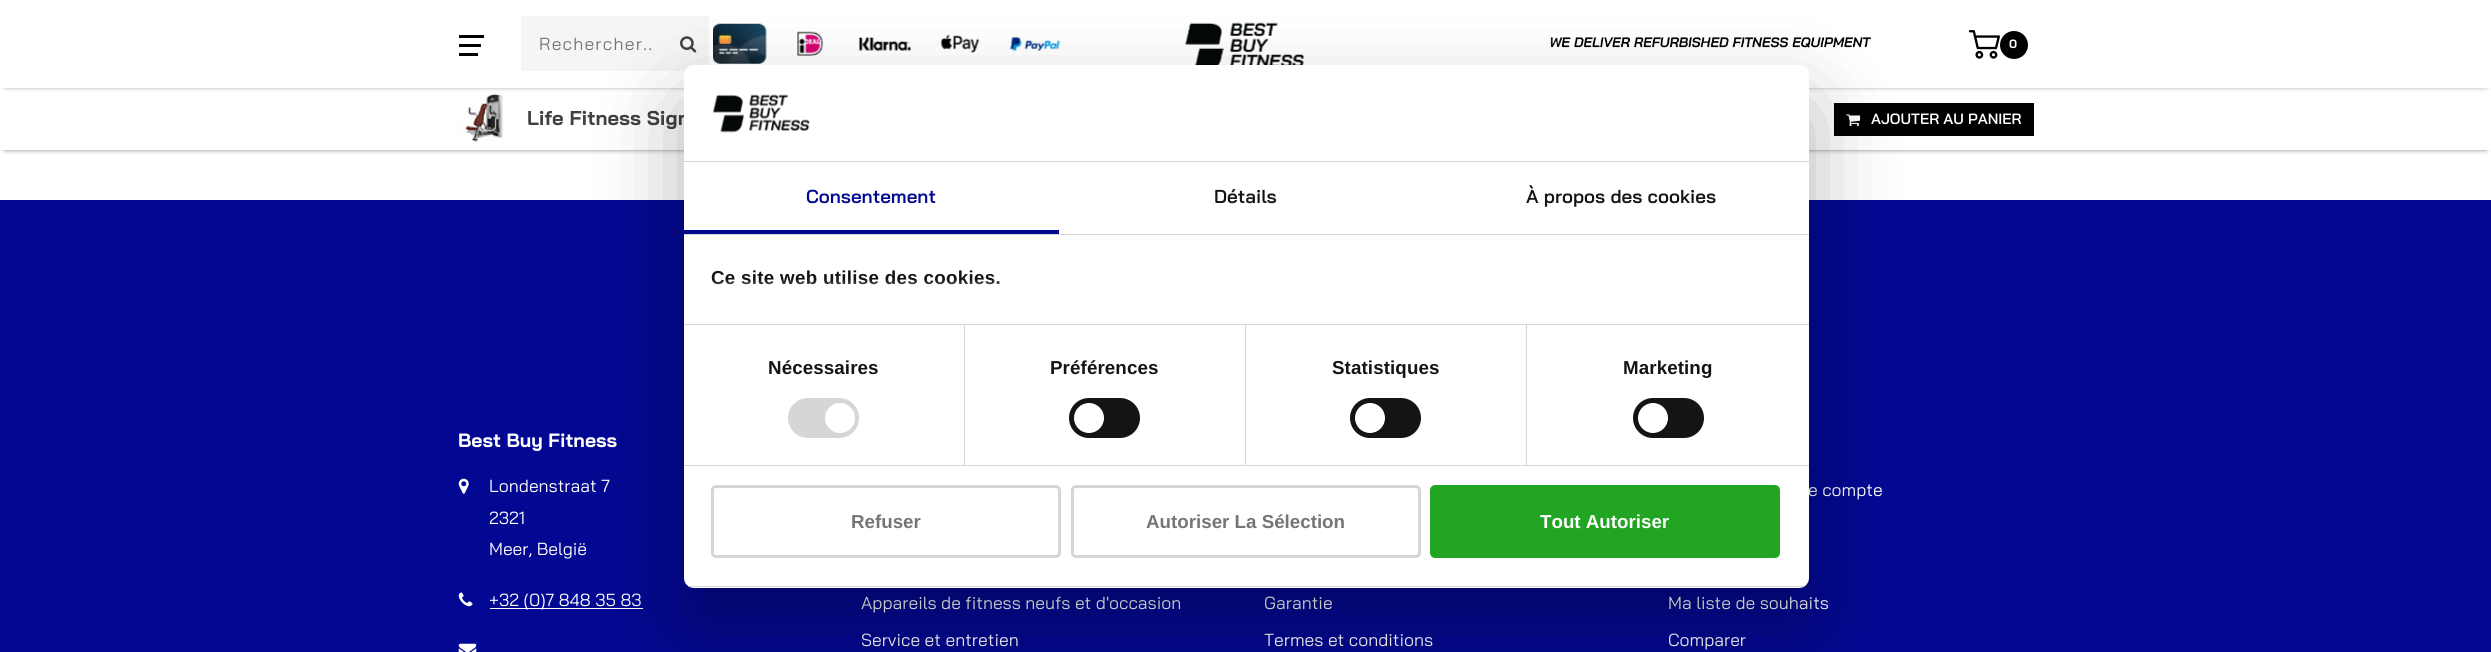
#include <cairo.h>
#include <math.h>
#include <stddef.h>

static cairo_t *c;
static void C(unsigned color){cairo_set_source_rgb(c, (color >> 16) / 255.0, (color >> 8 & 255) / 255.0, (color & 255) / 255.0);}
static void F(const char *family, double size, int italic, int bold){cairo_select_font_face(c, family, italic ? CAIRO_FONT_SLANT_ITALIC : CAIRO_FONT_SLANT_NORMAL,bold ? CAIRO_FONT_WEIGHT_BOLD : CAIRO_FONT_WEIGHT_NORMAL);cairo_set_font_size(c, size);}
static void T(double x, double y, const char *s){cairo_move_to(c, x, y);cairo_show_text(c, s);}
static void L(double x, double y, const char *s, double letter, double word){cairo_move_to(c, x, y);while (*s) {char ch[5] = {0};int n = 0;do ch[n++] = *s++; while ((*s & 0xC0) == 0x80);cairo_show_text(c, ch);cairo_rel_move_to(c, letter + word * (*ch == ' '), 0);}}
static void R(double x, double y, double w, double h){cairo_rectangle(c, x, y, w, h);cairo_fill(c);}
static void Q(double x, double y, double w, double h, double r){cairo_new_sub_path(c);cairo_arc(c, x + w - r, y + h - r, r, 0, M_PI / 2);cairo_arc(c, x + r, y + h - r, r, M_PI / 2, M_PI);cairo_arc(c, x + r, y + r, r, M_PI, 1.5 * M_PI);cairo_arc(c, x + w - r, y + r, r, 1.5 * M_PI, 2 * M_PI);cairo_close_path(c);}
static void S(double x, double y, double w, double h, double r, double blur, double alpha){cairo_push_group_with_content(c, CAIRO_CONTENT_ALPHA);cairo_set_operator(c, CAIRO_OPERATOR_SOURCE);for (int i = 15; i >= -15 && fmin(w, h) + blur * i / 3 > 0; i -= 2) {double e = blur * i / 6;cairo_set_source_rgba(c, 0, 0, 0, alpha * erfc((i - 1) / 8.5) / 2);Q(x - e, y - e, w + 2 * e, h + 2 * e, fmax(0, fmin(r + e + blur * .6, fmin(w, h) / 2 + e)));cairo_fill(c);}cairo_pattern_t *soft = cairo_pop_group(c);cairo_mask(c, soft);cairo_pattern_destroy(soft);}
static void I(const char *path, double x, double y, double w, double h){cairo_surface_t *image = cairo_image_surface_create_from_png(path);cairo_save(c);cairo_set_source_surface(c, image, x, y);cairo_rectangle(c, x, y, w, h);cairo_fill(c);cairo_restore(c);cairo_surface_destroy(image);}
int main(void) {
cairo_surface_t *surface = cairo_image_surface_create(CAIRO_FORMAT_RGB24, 2491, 652);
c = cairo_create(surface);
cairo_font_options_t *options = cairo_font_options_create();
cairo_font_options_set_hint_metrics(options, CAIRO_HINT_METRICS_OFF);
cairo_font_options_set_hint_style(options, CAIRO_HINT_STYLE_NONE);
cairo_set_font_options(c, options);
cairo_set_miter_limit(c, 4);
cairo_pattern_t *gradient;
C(0xffffff);
cairo_paint(c);
C(0x000000);
S(5,95,2481,53,0,3,1);
C(0xffffff);
R(0,88,2491,62);
I("10.png",459,93,44,49);
C(0x000000);
S(5,8,2481,77,0,3,1);
C(0xffffff);
R(0,1,2491,87);
C(0x000000);
R(459,35,25,3);
R(459,44,22,3);
R(459,53,19,3);
C(0xf5f5f5);
R(521,16,188,55);
F("Bai Jamjuree",17.5,0,0);
C(0x757575);
L(539,50,"Rechercher..",1.25,0);
I("1.png",680,36,17,17);
I("2.png",713,23,54,41);
I("3.png",797,31,26,25);
I("4.png",859,36,52,15);
I("5.png",940,34,40,19);
I("6.png",1010,36,50,15);
I("7.png",1185,22,119,43);
I("8.png",1550,37,321,11);
I("9.png",1969,30,31,29);
C(0x000000);
cairo_arc(c,2014,45,14,0,2 * M_PI);
cairo_fill(c);
F("Bai Jamjuree",12,0,1);
C(0xffffff);
T(2009,48,"0");
F("Bai Jamjuree",20,0,1);
C(0x414141);
T(527,125,"Life Fitness Sign");
C(0x000000);
R(1834,103,200,33);
I("11.png",1846,114,15,12);
F("Bai Jamjuree SemiBold",14.9,0,0);
C(0xffffff);
T(1871,124,"AJOUTER AU PANIER");
C(0x020891);
R(0,200,2491,452);
F("Bai Jamjuree",19.25,0,1);
C(0xffffff);
T(458,447,"Best Buy Fitness");
I("12.png",458,478,11,16);
F("Bai Jamjuree",17.5,0,0);
T(489,492,"Londenstraat 7");
T(489,524,"2321");
T(489,555,"Meer, België");
I("13.png",458,592,15,15);
R(490,608,153,1);
T(489,606,"+32 (0)7 848 35 83");
I("14.png",458,643,19,9);
T(861,609,"Appareils de fitness neufs et d'occasion");
T(861,646,"Service et entretien");
T(1264,609,"Garantie");
T(1264,646,"Termes et conditions");
T(1808,496,"e compte");
T(1668,609,"Ma liste de souhaits");
T(1668,646,"Comparer");
C(0x000000);
S(684,105,1125,523,10,42.5,.3);
C(0xffffff);
Q(684,65,1125,523,10);
cairo_fill(c);
C(0xd6d6d6);
R(684,161,1125,1);
I("15.png",713,94,97,39);
R(684,234,1125,1);
C(0x020891);
R(684,230,375,4);
F("Bai Jamjuree SemiBold",18.75,0,0);
T(806,203,"Consentement");
C(0x141414);
T(1214,203,"Détails");
T(1526,203,"À propos des cookies");
C(0xd6d6d6);
R(684,324,1125,1);
F("Liberation Sans",18.75,0,1);
C(0x141414);
L(711,284,"Ce site web utilise des cookies.",.3,0);
gradient = cairo_pattern_create_linear(1233,324,1233,279);
cairo_pattern_add_color_stop_rgba(gradient,0,1,1,1,1);
cairo_pattern_add_color_stop_rgba(gradient,.5,1,1,1,.8);
cairo_pattern_add_color_stop_rgba(gradient,1,1,1,1,0);
cairo_set_source(c,gradient);
cairo_pattern_destroy(gradient);
R(712,280,288,5);
C(0xd6d6d6);
R(684,465,1125,1);
R(964,325,1,140);
C(0x141414);
L(768,374,"Nécessaires",.1,0);
C(0xd6d6d6);
Q(788,398,71,40,20);
cairo_fill(c);
C(0xffffff);
cairo_arc(c,840,418,15,0,2 * M_PI);
cairo_fill(c);
C(0xd6d6d6);
R(1245,325,1,140);
C(0x141414);
L(1050,374,"Préférences",.1,0);
Q(1069,398,71,40,20);
cairo_fill(c);
C(0xffffff);
cairo_arc(c,1089,418,15,0,2 * M_PI);
cairo_fill(c);
C(0xd6d6d6);
R(1526,325,1,140);
C(0x141414);
L(1332,374,"Statistiques",.1,0);
Q(1350,398,71,40,20);
cairo_fill(c);
C(0xffffff);
cairo_arc(c,1370,418,15,0,2 * M_PI);
cairo_fill(c);
C(0x141414);
L(1623,374,"Marketing",.1,0);
Q(1633,398,71,40,20);
cairo_fill(c);
C(0xffffff);
cairo_arc(c,1653,418,15,0,2 * M_PI);
cairo_fill(c);
cairo_save(c);
Q(684,65,1125,523,10);
cairo_clip(c);
C(0xd6d6d6);
R(684,586,1125,1);
cairo_restore(c);
Q(712.5,486.5,347,70,3.5);
C(0xd6d6d6);
cairo_set_line_width(c,3);
cairo_stroke(c);
C(0x757575);
T(851,528,"Refuser");
Q(1072.5,486.5,347,70,3.5);
C(0xd6d6d6);
cairo_stroke(c);
C(0x757575);
T(1146,528,"Autoriser La Sélection");
C(0x22a522);
Q(1431.5,486.5,347,70,3.5);
cairo_fill_preserve(c);
cairo_stroke(c);
C(0xffffff);
T(1540,528,"Tout Autoriser");
cairo_surface_write_to_png(surface, "o.png");
cairo_font_options_destroy(options);
cairo_destroy(c);
cairo_surface_destroy(surface);
return 0;
}
